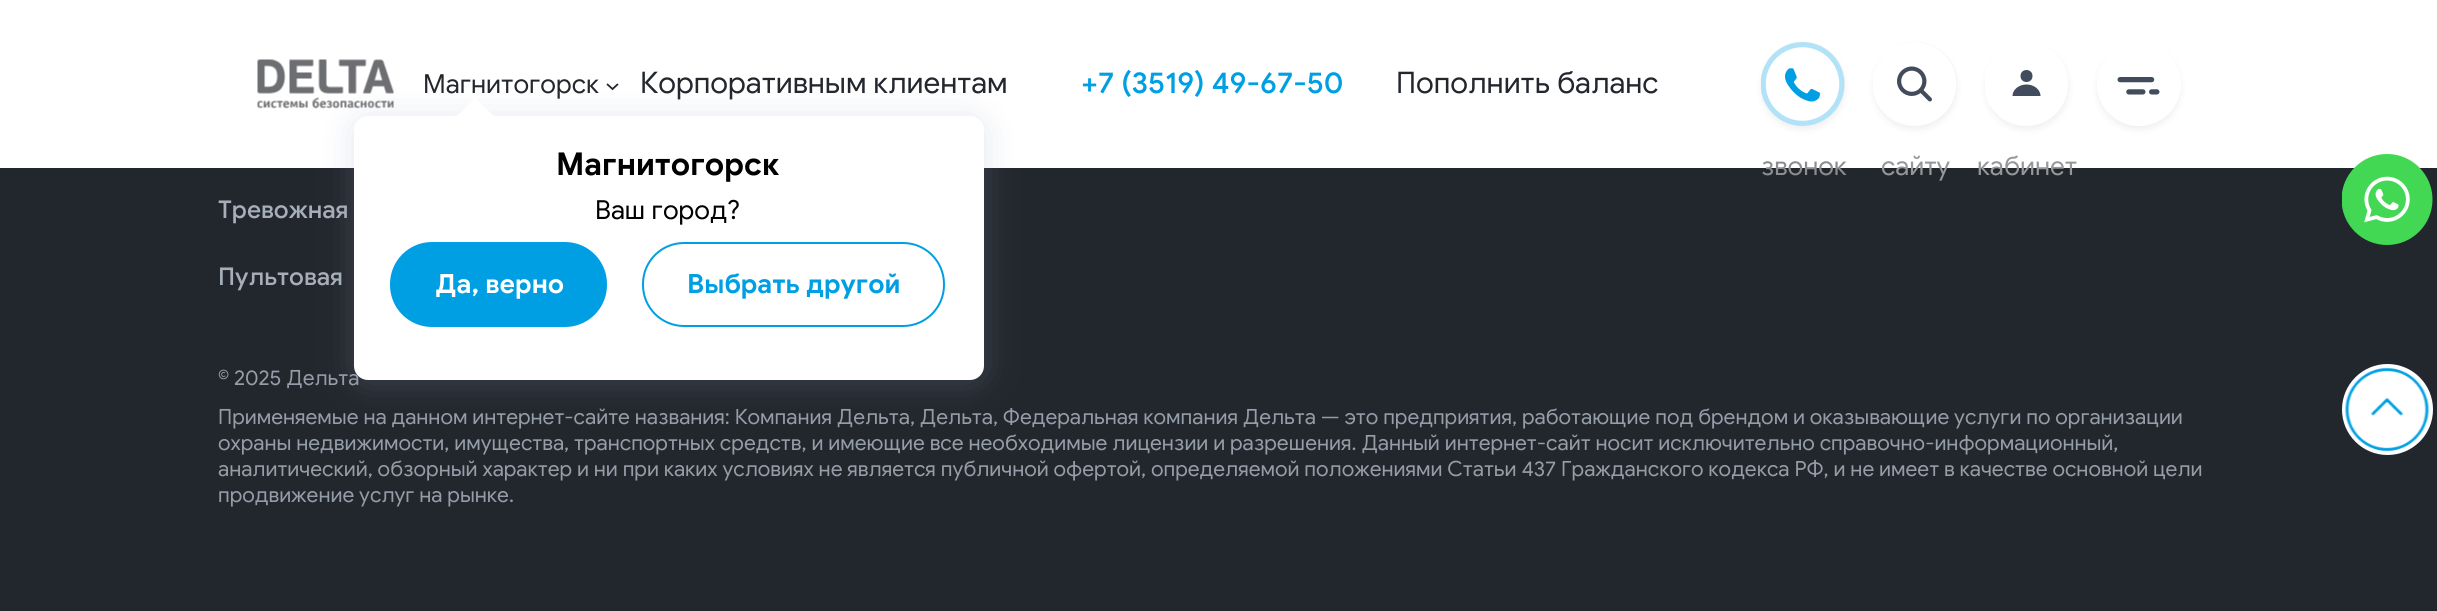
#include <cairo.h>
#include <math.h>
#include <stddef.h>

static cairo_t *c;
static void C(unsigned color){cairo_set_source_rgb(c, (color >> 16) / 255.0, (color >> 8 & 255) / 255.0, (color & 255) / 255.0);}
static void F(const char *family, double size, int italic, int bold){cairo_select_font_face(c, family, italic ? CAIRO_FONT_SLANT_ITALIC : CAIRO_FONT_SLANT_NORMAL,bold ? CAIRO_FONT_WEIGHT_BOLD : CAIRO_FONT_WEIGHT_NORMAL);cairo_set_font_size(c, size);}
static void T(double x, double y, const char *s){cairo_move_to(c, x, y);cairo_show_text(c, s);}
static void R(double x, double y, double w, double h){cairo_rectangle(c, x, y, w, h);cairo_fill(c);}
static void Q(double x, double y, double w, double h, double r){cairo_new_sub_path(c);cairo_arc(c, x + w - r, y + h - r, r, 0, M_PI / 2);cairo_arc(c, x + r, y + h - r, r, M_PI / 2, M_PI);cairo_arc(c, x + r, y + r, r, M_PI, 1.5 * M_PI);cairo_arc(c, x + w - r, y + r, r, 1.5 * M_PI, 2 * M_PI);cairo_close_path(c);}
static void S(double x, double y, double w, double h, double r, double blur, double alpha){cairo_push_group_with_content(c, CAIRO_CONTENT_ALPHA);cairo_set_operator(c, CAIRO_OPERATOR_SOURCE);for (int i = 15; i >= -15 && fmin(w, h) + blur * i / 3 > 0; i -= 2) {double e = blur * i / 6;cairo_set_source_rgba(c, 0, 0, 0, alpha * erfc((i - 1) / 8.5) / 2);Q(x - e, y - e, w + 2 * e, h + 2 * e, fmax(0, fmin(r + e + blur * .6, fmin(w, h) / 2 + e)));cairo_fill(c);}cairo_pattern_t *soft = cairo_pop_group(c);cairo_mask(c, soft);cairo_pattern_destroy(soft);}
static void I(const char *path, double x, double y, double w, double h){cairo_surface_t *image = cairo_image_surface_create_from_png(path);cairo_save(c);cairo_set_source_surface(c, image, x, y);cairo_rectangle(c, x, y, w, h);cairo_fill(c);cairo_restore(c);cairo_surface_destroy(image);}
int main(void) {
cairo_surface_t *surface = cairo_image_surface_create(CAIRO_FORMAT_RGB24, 2437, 611);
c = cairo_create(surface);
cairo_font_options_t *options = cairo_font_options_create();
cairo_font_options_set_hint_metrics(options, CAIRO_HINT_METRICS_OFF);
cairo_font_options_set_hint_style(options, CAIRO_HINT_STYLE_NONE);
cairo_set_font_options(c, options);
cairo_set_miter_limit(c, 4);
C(0x22262d);
cairo_paint(c);
C(0xffffff);
R(0,0,2437,168);
I("1.png",257,59,137,50);
F("Google Sans",29.75,0,0);
C(0x22262d);
T(640,93,"Корпоративным клиентам");
F("Google Sans",26.25,0,0);
T(423,93,"Магнитогорск");
cairo_new_path(c);
cairo_move_to(c,607,84);
cairo_line_to(c,612.5,89);
cairo_line_to(c,618,84);
cairo_set_line_width(c,1.8);
cairo_stroke(c);
C(0x8c9ab9);
S(354,119,630,264,14,17.5,.25);
F("Google Sans",21,0,0);
C(0x959da8);
T(218,385,"© 2025 Дельта");
C(0xffffff);
Q(354,116,630,264,14);
cairo_fill(c);
cairo_new_path(c);
cairo_move_to(c,475,98);
cairo_line_to(c,500,122);
cairo_line_to(c,475,147);
cairo_line_to(c,450,123);
cairo_close_path(c);
cairo_fill(c);
F("Google Sans",31.5,0,1);
C(0x000000);
T(556,175,"Магнитогорск");
F("Google Sans",26.25,0,0);
T(595,219,"Ваш город?");
C(0x009fe3);
Q(391,243,215,83,41);
cairo_fill_preserve(c);
cairo_set_line_width(c,2);
cairo_stroke(c);
F("Google Sans",26.5,0,1);
C(0xffffff);
T(435,293,"Да, верно");
Q(643,243,301,83,41);
C(0x009fe3);
cairo_stroke(c);
T(687,293,"Выбрать другой");
F("Google Sans Medium",29.75,0,0);
T(1081,93,"+7 (3519) 49-67-50");
F("Google Sans",29.75,0,0);
C(0x22262d);
T(1396,93,"Пополнить баланс");
cairo_save(c);
cairo_set_fill_rule(c,CAIRO_FILL_RULE_EVEN_ODD);
cairo_new_path(c);
cairo_move_to(c,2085,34);
cairo_line_to(c,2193,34);
cairo_line_to(c,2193,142);
cairo_line_to(c,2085,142);
cairo_close_path(c);
cairo_move_to(c,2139,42);
cairo_curve_to(c,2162,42,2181,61,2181,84);
cairo_curve_to(c,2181,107,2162,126,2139,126);
cairo_curve_to(c,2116,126,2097,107,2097,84);
cairo_curve_to(c,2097,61,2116,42,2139,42);
cairo_close_path(c);
cairo_clip(c);
C(0x28292a);
S(2097,46,84,84,42,3.5,.07);
cairo_restore(c);
I("2.png",2117,77,43,18);
C(0x28292a);
S(1761,46,84,84,42,3.5,.07);
C(0xefefef);
cairo_arc(c,1803,84,42,0,2 * M_PI);
cairo_fill(c);
I("3.png",1761,42,84,84);
F("Google Sans",26.25,0,0);
C(0x8b8d91);
T(1761,175,"звонок");
C(0x28292a);
S(1873,46,84,84,42,3.5,.07);
C(0xefefef);
cairo_arc(c,1915,84,42,0,2 * M_PI);
cairo_fill(c);
I("4.png",1873,42,84,84);
C(0x95979a);
T(1881,175,"сайту");
C(0x28292a);
S(1985,46,84,84,42,3.5,.07);
cairo_save(c);
cairo_rectangle(c,1985,42,84,84);
cairo_clip(c);
C(0xffffff);
cairo_set_fill_rule(c,CAIRO_FILL_RULE_EVEN_ODD);
cairo_new_path(c);
cairo_move_to(c,2026,126);
cairo_curve_to(c,2050,126,2068,107,2068,84);
cairo_curve_to(c,2068,61,2050,42,2026,42);
cairo_curve_to(c,2003,42,1984,61,1984,84);
cairo_curve_to(c,1984,107,2003,126,2026,126);
cairo_close_path(c);
cairo_fill(c);
cairo_restore(c);
C(0x434c5d);
cairo_set_fill_rule(c,CAIRO_FILL_RULE_EVEN_ODD);
cairo_new_path(c);
cairo_move_to(c,2032.5,76);
cairo_curve_to(c,2032.5,84,2020.5,84,2020.5,76);
cairo_curve_to(c,2020.5,68,2032.5,68,2032.5,76);
cairo_close_path(c);
cairo_move_to(c,2026.5,84.5);
cairo_curve_to(c,2034,84.5,2040.5,89.5,2040.5,96);
cairo_line_to(c,2012.5,96);
cairo_curve_to(c,2012.5,89.5,2019,84.5,2026.5,84.5);
cairo_close_path(c);
cairo_fill(c);
C(0x95979a);
T(1977,175,"кабинет");
F("Google Sans Medium",24.5,0,0);
C(0xa5aeb9);
T(218,218,"Тревожная");
T(218,285,"Пультовая");
F("Google Sans",21,0,0);
C(0x959da8);
T(218,424,"Применяемые на данном интернет-сайте названия: Компания Дельта, Дельта, Федеральная компания Дельта — это предприятия, работающие под брендом и оказывающие услуги по организации");
T(218,450,"охраны недвижимости, имущества, транспортных средств, и имеющие все необходимые лицензии и разрешения. Данный интернет-сайт носит исключительно справочно-информационный,");
T(218,476,"аналитический, обзорный характер и ни при каких условиях не является публичной офертой, определяемой положениями Статьи 437 Гражданского кодекса РФ, и не имеет в качестве основной цели");
T(218,502,"продвижение услуг на рынке.");
C(0x28292a);
S(2342,158,91,91,45.5,3.5,.07);
S(2342,158,91,91,45.5,3.5,.07);
I("5.png",2342,154,91,91);
C(0xffffff);
cairo_arc(c,2387.5,409.5,45.5,0,2 * M_PI);
cairo_fill(c);
I("6.png",2344,367,86,85);
cairo_surface_write_to_png(surface, "o.png");
cairo_font_options_destroy(options);
cairo_destroy(c);
cairo_surface_destroy(surface);
return 0;
}
